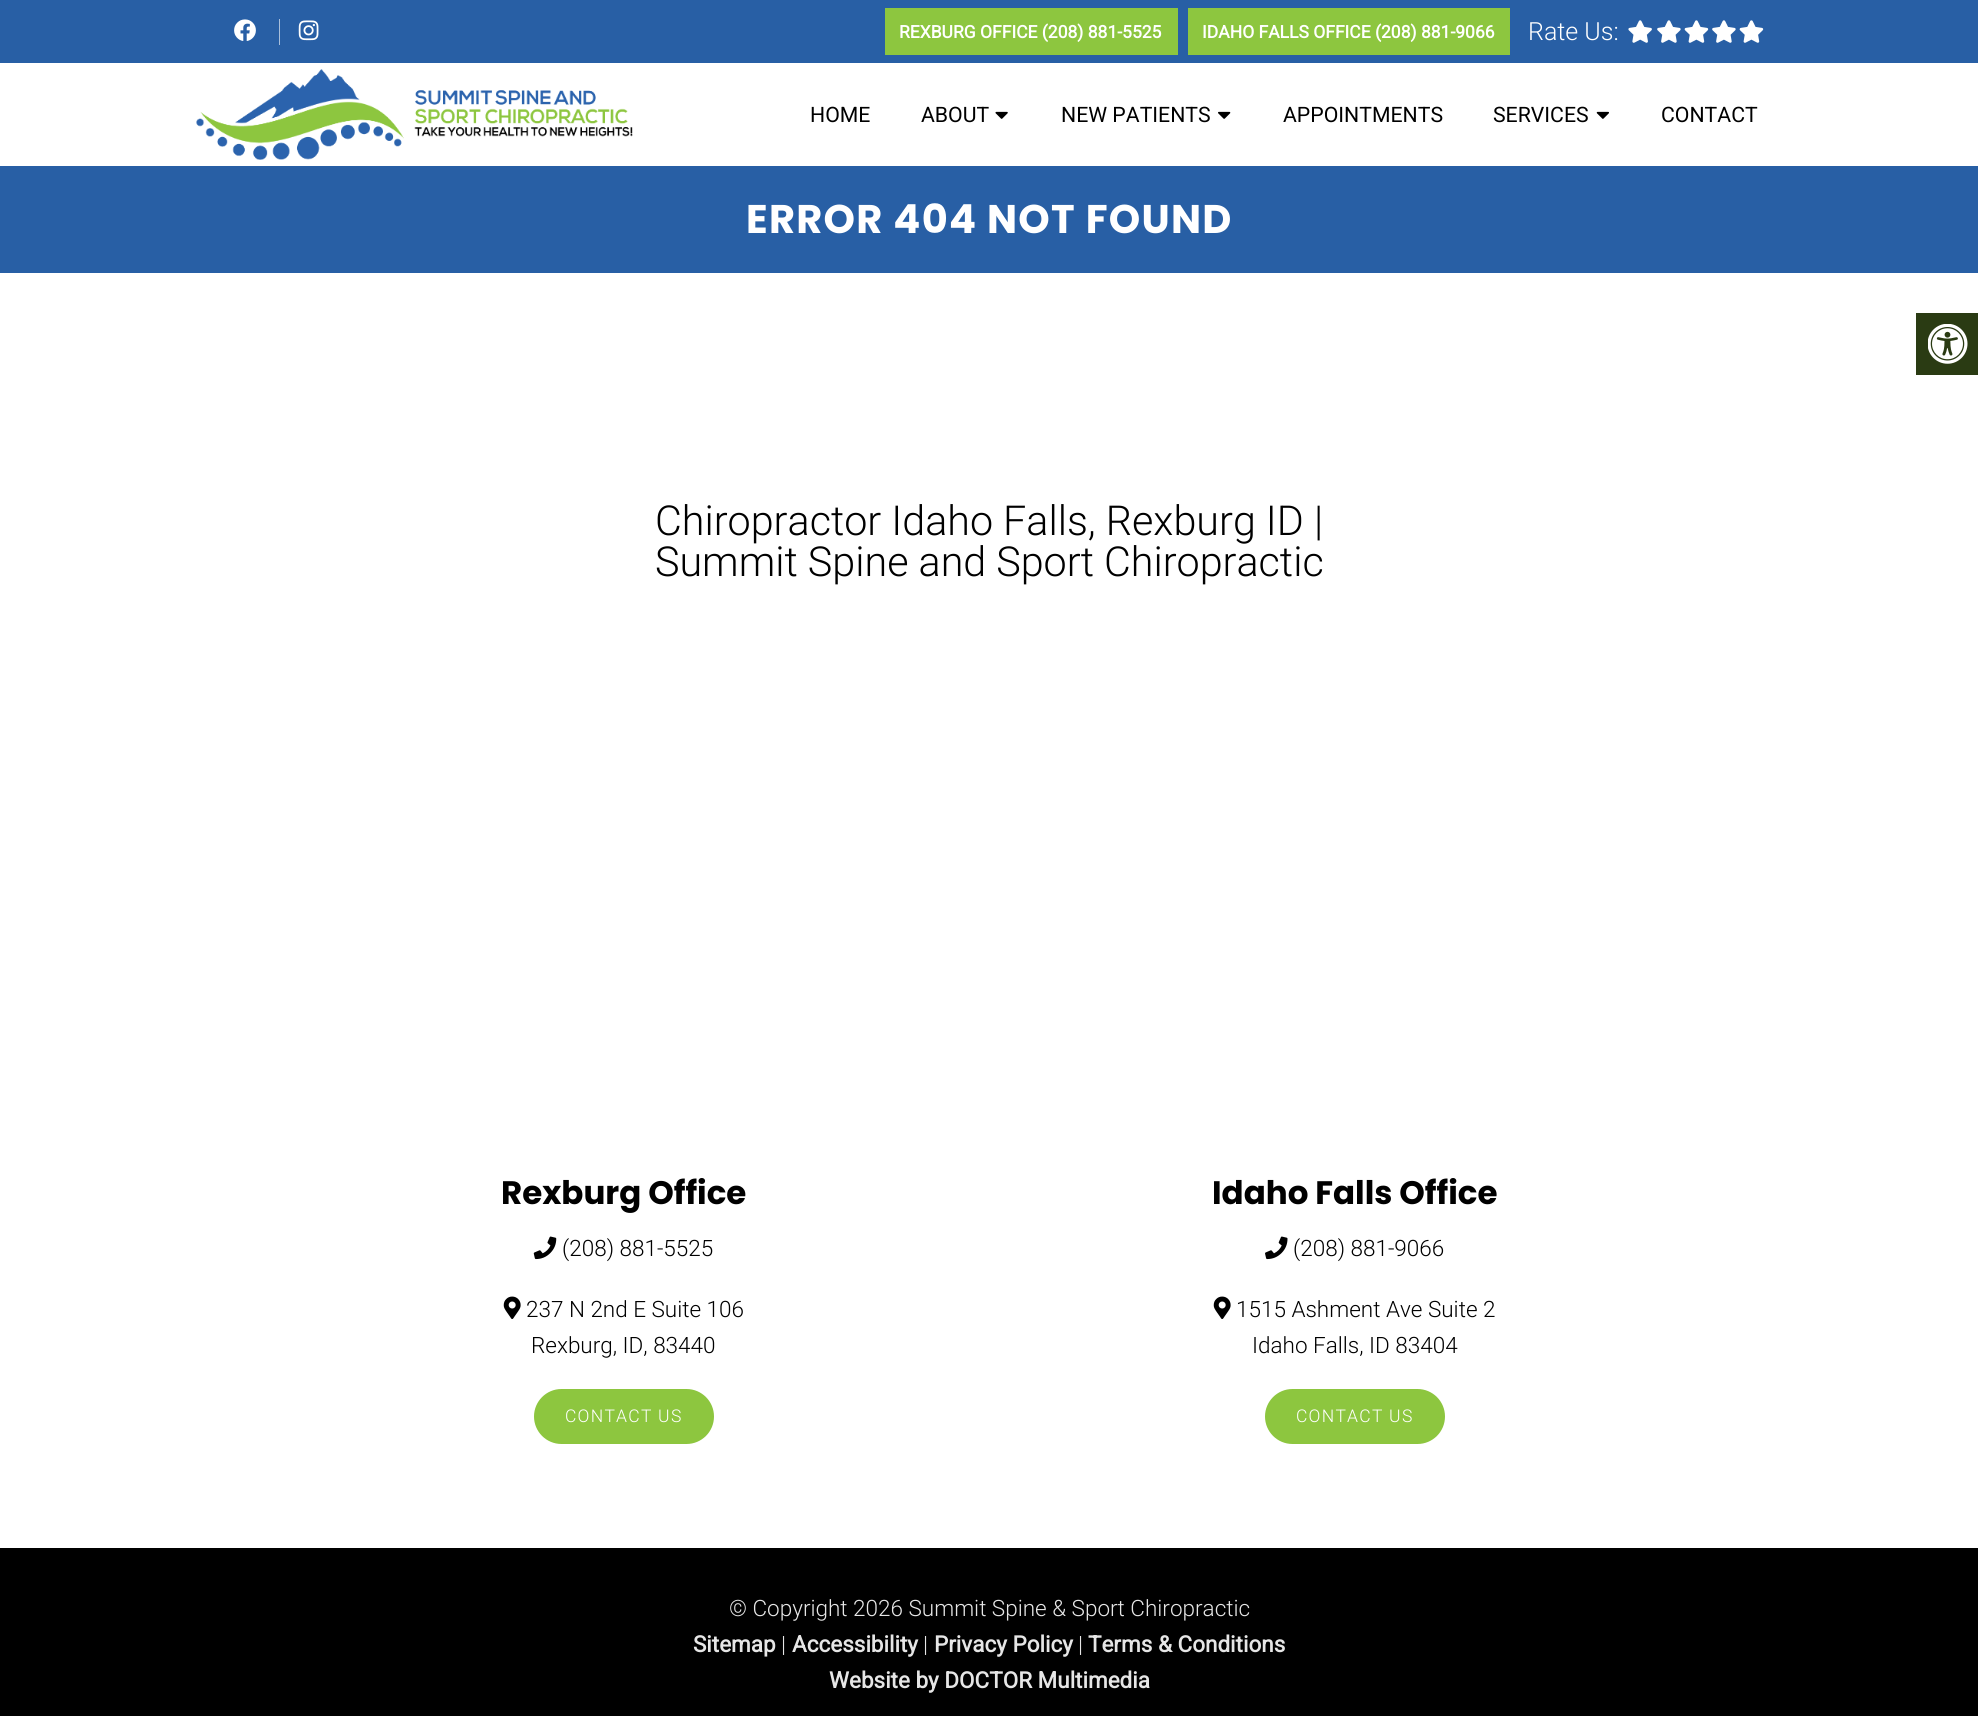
#include <cairo.h>
#include <math.h>
#include <stddef.h>

static cairo_t *c;
static void C(unsigned color){cairo_set_source_rgb(c, (color >> 16) / 255.0, (color >> 8 & 255) / 255.0, (color & 255) / 255.0);}
static void F(const char *family, double size, int italic, int bold){cairo_select_font_face(c, family, italic ? CAIRO_FONT_SLANT_ITALIC : CAIRO_FONT_SLANT_NORMAL,bold ? CAIRO_FONT_WEIGHT_BOLD : CAIRO_FONT_WEIGHT_NORMAL);cairo_set_font_size(c, size);}
static void T(double x, double y, const char *s){cairo_move_to(c, x, y);cairo_show_text(c, s);}
static void L(double x, double y, const char *s, double letter, double word){cairo_move_to(c, x, y);while (*s) {char ch[5] = {0};int n = 0;do ch[n++] = *s++; while ((*s & 0xC0) == 0x80);cairo_show_text(c, ch);cairo_rel_move_to(c, letter + word * (*ch == ' '), 0);}}
static void R(double x, double y, double w, double h){cairo_rectangle(c, x, y, w, h);cairo_fill(c);}
static void Q(double x, double y, double w, double h, double r){cairo_new_sub_path(c);cairo_arc(c, x + w - r, y + h - r, r, 0, M_PI / 2);cairo_arc(c, x + r, y + h - r, r, M_PI / 2, M_PI);cairo_arc(c, x + r, y + r, r, M_PI, 1.5 * M_PI);cairo_arc(c, x + w - r, y + r, r, 1.5 * M_PI, 2 * M_PI);cairo_close_path(c);}
static void I(const char *path, double x, double y, double w, double h){cairo_surface_t *image = cairo_image_surface_create_from_png(path);cairo_save(c);cairo_set_source_surface(c, image, x, y);cairo_rectangle(c, x, y, w, h);cairo_fill(c);cairo_restore(c);cairo_surface_destroy(image);}
int main(void) {
cairo_surface_t *surface = cairo_image_surface_create(CAIRO_FORMAT_RGB24, 1978, 1716);
c = cairo_create(surface);
cairo_font_options_t *options = cairo_font_options_create();
cairo_font_options_set_hint_metrics(options, CAIRO_HINT_METRICS_OFF);
cairo_font_options_set_hint_style(options, CAIRO_HINT_STYLE_NONE);
cairo_set_font_options(c, options);
cairo_set_miter_limit(c, 4);
C(0xffffff);
cairo_paint(c);
C(0x285fa5);
R(0,0,1978,63);
I("1.png",234,19,22,22);
C(0xa9bfdb);
R(279,19,1,26);
I("2.png",298,20,21,21);
C(0x8dc63f);
R(885,8,293,47);
F("Roboto",17.5,0,1);
C(0xffffff);
T(899,38,"REXBURG OFFICE (208) 881-5525");
C(0x8dc63f);
R(1188,8,322,47);
C(0xffffff);
T(1202,38,"IDAHO FALLS OFFICE (208) 881-9066");
F("Roboto Light",25,0,0);
T(1528,40,"Rate Us:");
I("3.png",1628,20,24,23);
I("4.png",1657,20,24,23);
I("5.png",1684,20,25,23);
I("4.png",1712,20,24,23);
I("5.png",1739,20,25,23);
I("6.png",196,69,437,91);
F("Roboto",21.25,0,0);
C(0x000000);
T(810,122,"HOME");
T(921,122,"ABOUT");
I("7.png",995,111,13,8);
T(1061,122,"NEW PATIENTS");
I("8.png",1218,111,13,8);
T(1283,122,"APPOINTMENTS");
T(1493,122,"SERVICES");
I("9.png",1596,111,13,8);
T(1661,122,"CONTACT");
C(0x285fa5);
R(0,166,1978,107);
F("Poppins",40,0,1);
C(0xffffff);
L(746,233,"ERROR 404 NOT FOUND",1.25,0);
F("Roboto Light",41.25,0,0);
C(0x000000);
T(655,535,"Chiropractor Idaho Falls, Rexburg ID |");
T(655,576,"Summit Spine and Sport Chiropractic");
F("Poppins",32.5,0,1);
T(501,1204,"Rexburg Office");
I("10.png",533,1236,24,24);
F("Roboto Light",22.5,0,0);
T(562,1256,"(208) 881-5525");
I("11.png",503,1296,18,23);
T(526,1317,"237 N 2nd E Suite 106");
T(531,1353,"Rexburg, ID, 83440");
C(0x8dc63f);
Q(534,1389,180,55,27.5);
cairo_fill(c);
F("Roboto Light",17.5,0,0);
C(0xffffff);
L(565,1422,"CONTACT US",1.25,0);
F("Poppins",32.5,0,1);
C(0x000000);
T(1212,1204,"Idaho Falls Office");
I("12.png",1265,1236,23,24);
F("Roboto Light",22.5,0,0);
T(1293,1256,"(208) 881-9066");
I("11.png",1213,1296,18,23);
T(1236,1317,"1515 Ashment Ave Suite 2");
T(1252,1353,"Idaho Falls, ID 83404");
C(0x8dc63f);
Q(1265,1389,180,55,27.5);
cairo_fill(c);
F("Roboto Light",17.5,0,0);
C(0xffffff);
L(1296,1422,"CONTACT US",1.25,0);
C(0x000000);
R(0,1548,1978,168);
F("Roboto Light",22.5,0,0);
C(0xe6e6e6);
T(729,1616,"© Copyright 2026 Summit Spine & Sport Chiropractic");
F("Roboto",22.5,0,1);
T(693,1652,"Sitemap");
F("Roboto Light",22.5,0,0);
T(781,1652,"|");
F("Roboto",22.5,0,1);
T(792,1652,"Accessibility");
F("Roboto Light",22.5,0,0);
T(923,1652,"|");
F("Roboto",22.5,0,1);
T(934,1652,"Privacy Policy");
F("Roboto Light",22.5,0,0);
T(1078,1652,"|");
F("Roboto",22.5,0,1);
T(1088,1652,"Terms & Conditions");
T(829,1688,"Website by DOCTOR Multimedia");
C(0x2a3b13);
R(1916,313,62,62);
I("13.png",1928,324,40,40);
cairo_surface_write_to_png(surface, "o.png");
cairo_font_options_destroy(options);
cairo_destroy(c);
cairo_surface_destroy(surface);
return 0;
}
